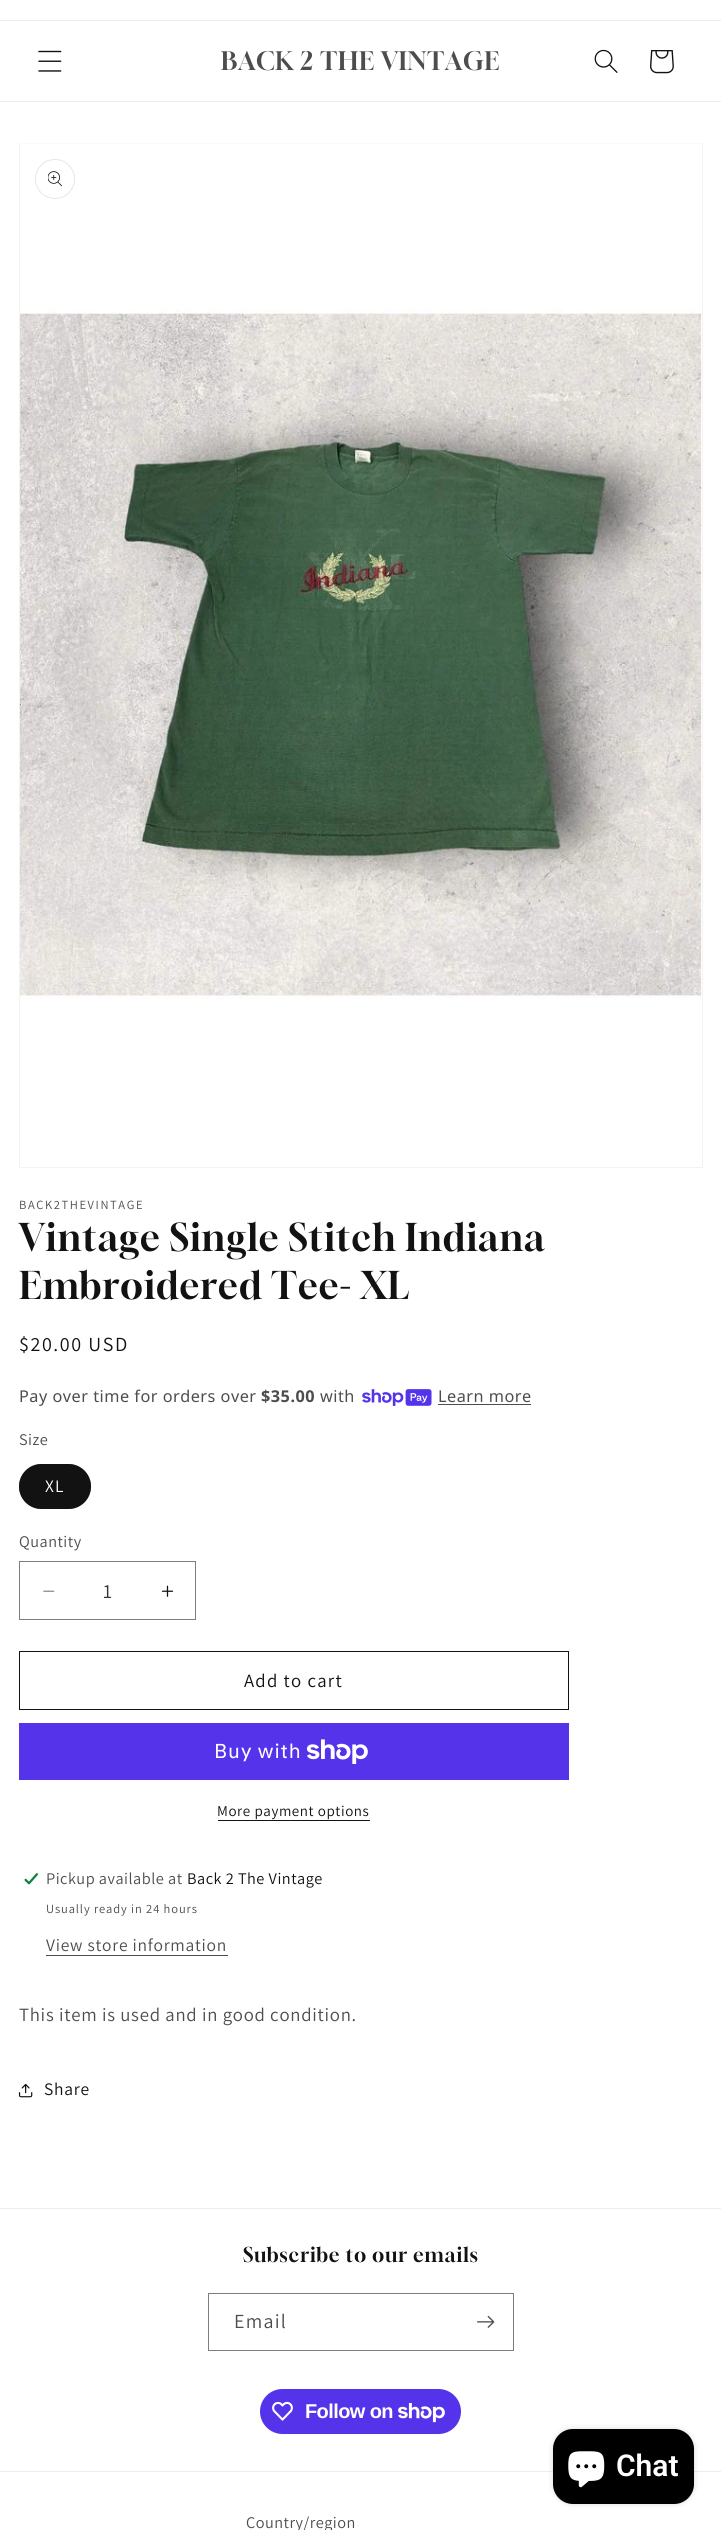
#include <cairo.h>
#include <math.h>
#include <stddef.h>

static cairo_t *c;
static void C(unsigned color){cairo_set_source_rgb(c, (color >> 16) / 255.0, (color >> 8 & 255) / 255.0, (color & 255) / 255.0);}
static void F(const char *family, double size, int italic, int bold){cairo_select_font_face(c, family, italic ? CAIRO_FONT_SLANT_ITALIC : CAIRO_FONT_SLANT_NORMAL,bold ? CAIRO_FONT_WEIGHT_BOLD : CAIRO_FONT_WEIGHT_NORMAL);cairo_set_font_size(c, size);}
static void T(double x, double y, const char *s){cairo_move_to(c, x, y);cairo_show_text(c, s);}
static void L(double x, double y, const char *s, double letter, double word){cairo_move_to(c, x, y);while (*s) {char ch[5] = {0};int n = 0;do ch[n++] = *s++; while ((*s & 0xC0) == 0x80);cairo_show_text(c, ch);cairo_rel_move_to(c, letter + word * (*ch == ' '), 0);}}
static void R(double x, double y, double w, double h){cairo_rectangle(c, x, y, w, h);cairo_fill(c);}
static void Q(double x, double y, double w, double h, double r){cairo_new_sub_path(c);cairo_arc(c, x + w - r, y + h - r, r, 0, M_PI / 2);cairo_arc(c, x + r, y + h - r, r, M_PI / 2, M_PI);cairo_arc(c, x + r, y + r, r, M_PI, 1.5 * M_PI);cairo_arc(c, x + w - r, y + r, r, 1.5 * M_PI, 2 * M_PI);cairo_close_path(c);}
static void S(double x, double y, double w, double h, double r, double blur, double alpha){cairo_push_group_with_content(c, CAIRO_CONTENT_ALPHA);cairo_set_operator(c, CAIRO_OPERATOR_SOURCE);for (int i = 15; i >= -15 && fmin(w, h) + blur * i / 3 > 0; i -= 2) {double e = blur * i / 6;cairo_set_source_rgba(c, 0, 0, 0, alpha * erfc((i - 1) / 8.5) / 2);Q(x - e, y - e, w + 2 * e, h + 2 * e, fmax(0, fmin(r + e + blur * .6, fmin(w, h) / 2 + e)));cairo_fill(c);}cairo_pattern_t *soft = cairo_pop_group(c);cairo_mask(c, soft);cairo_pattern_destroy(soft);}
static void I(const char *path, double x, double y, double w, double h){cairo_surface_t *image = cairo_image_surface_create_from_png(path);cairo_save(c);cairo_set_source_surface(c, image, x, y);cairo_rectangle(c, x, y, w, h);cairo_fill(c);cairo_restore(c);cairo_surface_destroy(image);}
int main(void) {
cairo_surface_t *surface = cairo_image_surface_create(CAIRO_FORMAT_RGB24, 721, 2530);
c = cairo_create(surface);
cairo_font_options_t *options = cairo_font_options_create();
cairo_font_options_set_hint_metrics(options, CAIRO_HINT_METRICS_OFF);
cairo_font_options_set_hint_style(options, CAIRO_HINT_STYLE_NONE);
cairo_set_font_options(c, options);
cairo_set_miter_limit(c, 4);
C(0xffffff);
cairo_paint(c);
C(0xececec);
R(0,20,721,1);
R(0,101,721,1);
I("1.png",38,50,24,22);
F("Gloock",25,0,0);
C(0x4d4d4d);
L(221,70,"BACK 2 THE VINTAGE",.75,0);
I("2.png",594,49,24,24);
I("3.png",650,50,24,24);
cairo_rectangle(c,19.5,143.5,683,1024);
C(0xf3f3f3);
cairo_set_line_width(c,1);
cairo_stroke(c);
I("4.png",20,143,682,856);
cairo_arc(c,55,179,19.5,0,2 * M_PI);
C(0xe7e7e7);
cairo_stroke(c);
I("5.png",48,171,14,16);
F("Assistant",12.5,0,0);
C(0x4d4d4d);
L(19,1209,"BACK2THEVINTAGE",1.6,0);
F("Gloock",37.5,0,0);
C(0x121212);
L(19,1251,"Vintage Single Stitch Indiana",.75,0);
L(19,1299,"Embroidered Tee- XL",.75,0);
F("Assistant",20,0,0);
L(19,1351,"$20.00 USD",1.6,0);
F("Noto Sans",16.25,0,0);
C(0x4d4d4d);
L(19,1402,"Pay over time for orders over",.5,0);
F("Noto Sans",16.25,0,1);
L(261,1402,"$35.00",.5,0);
F("Noto Sans",16.25,0,0);
L(320,1402,"with",.5,0);
I("6.png",362,1389,70,17);
L(438,1402,"Learn more",.5,0);
R(438,1404,93,1);
F("Assistant",16.25,0,0);
L(19,1445,"Size",.5,0);
C(0x121212);
Q(19,1464,72,45,22.5);
cairo_fill(c);
Q(19.5,1464.5,71,44,22);
cairo_set_source_rgba(c,0.071,0.071,0.071,0.55);
cairo_stroke(c);
F("Assistant",17.5,0,0);
C(0xffffff);
L(45,1492,"XL",1.25,0);
F("Assistant",16.25,0,0);
C(0x4d4d4d);
L(19,1547,"Quantity",.5,0);
I("7.png",43,1590,12,2);
I("8.png",161,1585,13,12);
cairo_rectangle(c,19.5,1561.5,176,58);
C(0x7d7d7d);
cairo_stroke(c);
F("Assistant",20,0,0);
C(0x363636);
T(103,1598,"1");
cairo_rectangle(c,19.5,1651.5,549,58);
C(0x121212);
cairo_stroke(c);
F("Assistant",18.75,0,0);
L(244,1687,"Add to cart",1.25,0);
C(0x5433eb);
R(19,1723,550,57);
F("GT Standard",20,0,0);
C(0xffffff);
L(214,1758,"Buy with",.75,0);
I("9.png",306,1739,62,25);
F("Assistant",15,0,0);
C(0x121212);
L(217,1816,"More payment options",.6,0);
R(218,1820,152,1);
I("10.png",24,1872,15,13);
F("Assistant",16.25,0,0);
C(0x4d4d4d);
L(46,1884,"Pickup available at",.5,0);
C(0x121212);
L(187,1884,"Back 2 The Vintage",.5,0);
F("Assistant",12.5,0,0);
C(0x4d4d4d);
L(46,1913,"Usually ready in 24 hours",.9,0);
F("Assistant",17.5,0,0);
L(46,1951,"View store information",.75,0);
R(46,1955,182,1);
F("Assistant",18.75,0,0);
L(19,2021,"This item is used and in good condition.",.75,0);
I("11.png",18,2083,15,15);
F("Assistant",17.5,0,0);
C(0x121212);
L(44,2095,"Share",.75,0);
C(0xececec);
R(0,2208,721,1);
F("Gloock",20,0,0);
C(0x121212);
L(243,2262,"Subscribe to our emails",.75,0);
cairo_rectangle(c,208.5,2293.5,305,57);
C(0x7d7d7d);
cairo_stroke(c);
F("Assistant",20,0,0);
C(0x4d4d4d);
L(234,2328,"Email",1.25,0);
I("12.png",477,2315,18,13);
C(0x5433eb);
Q(260,2389,201,45,22.5);
cairo_fill(c);
I("13.png",272,2401,21,20);
F("Liberation Sans",20,0,1);
C(0xffffff);
L(305,2418,"Follow on",-.6,0);
I("14.png",398,2403,47,20);
C(0xececec);
R(0,2471,721,1);
F("Assistant",16.25,0,0);
C(0x4d4d4d);
L(246,2528,"Country/region",.5,0);
C(0x000000);
S(553,2429,141,75,20,3,.15);
C(0x000000);
Q(553,2429,141,75,20);
cairo_fill(c);
I("15.png",568,2451,37,37);
F("Roboto SemiBold",30,0,0);
C(0xffffff);
T(616,2476,"Chat");
cairo_surface_write_to_png(surface, "o.png");
cairo_font_options_destroy(options);
cairo_destroy(c);
cairo_surface_destroy(surface);
return 0;
}
